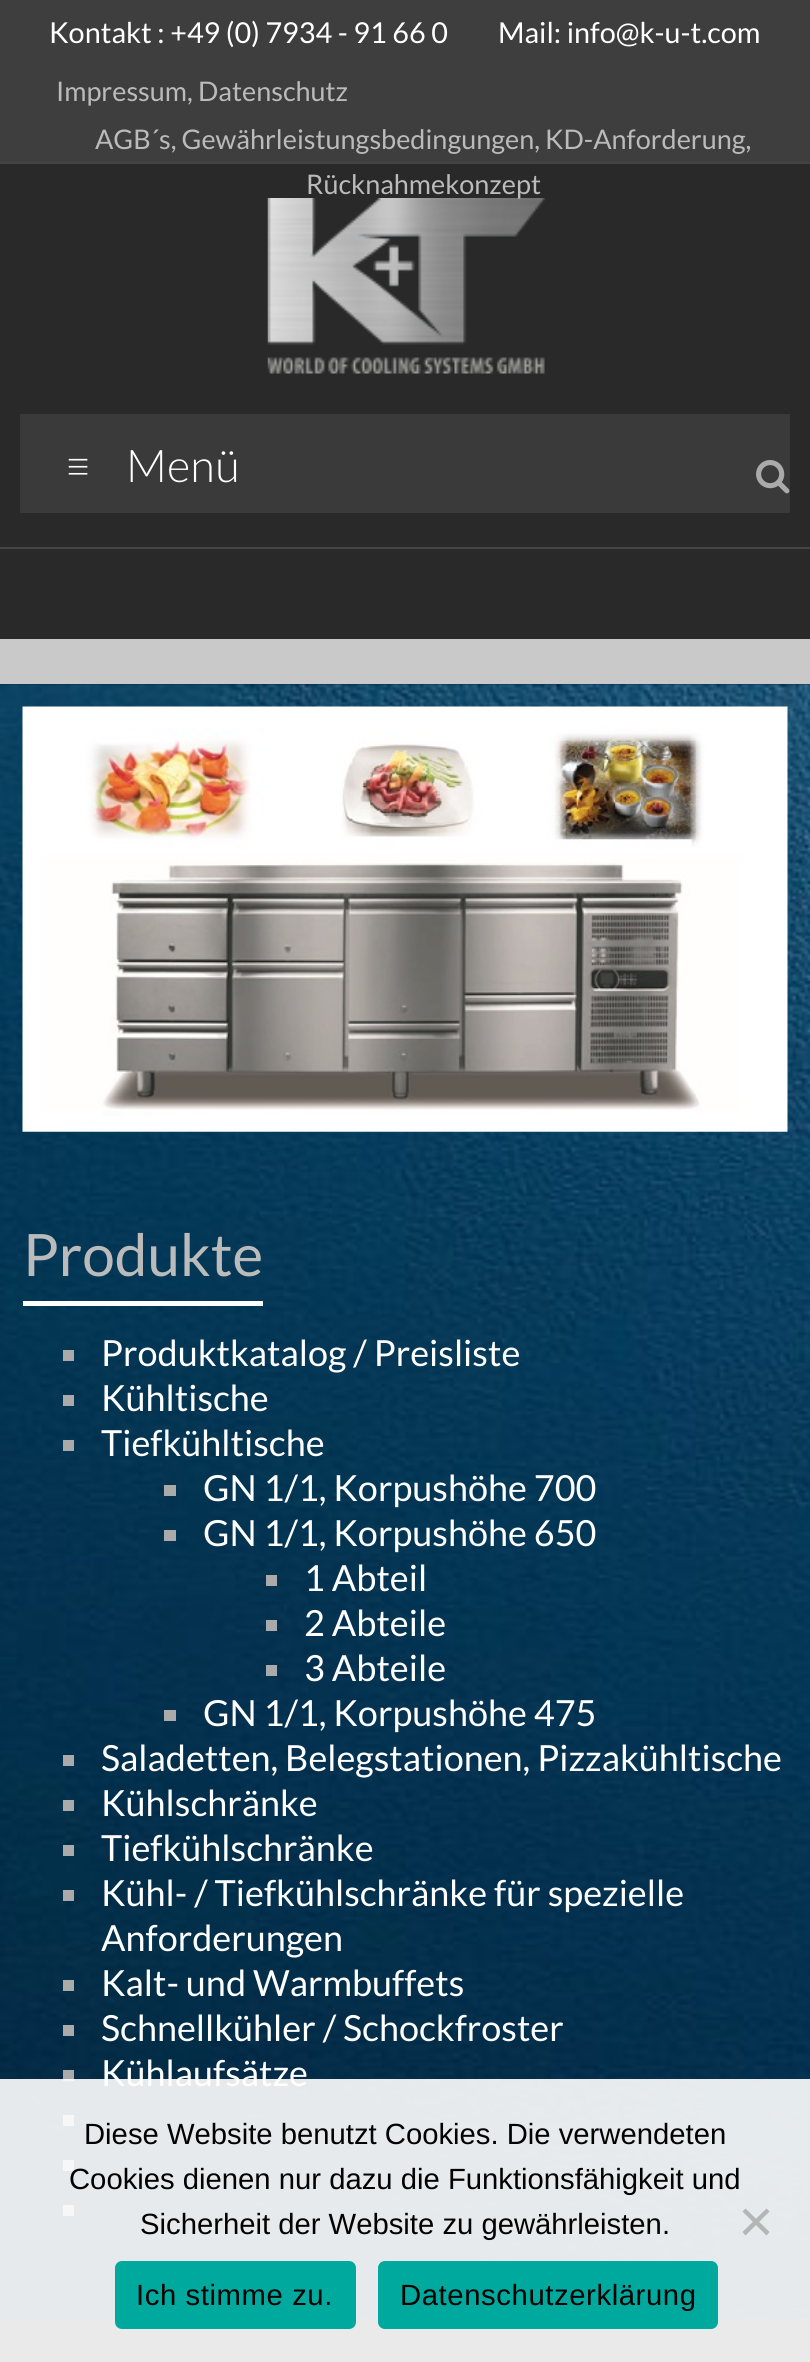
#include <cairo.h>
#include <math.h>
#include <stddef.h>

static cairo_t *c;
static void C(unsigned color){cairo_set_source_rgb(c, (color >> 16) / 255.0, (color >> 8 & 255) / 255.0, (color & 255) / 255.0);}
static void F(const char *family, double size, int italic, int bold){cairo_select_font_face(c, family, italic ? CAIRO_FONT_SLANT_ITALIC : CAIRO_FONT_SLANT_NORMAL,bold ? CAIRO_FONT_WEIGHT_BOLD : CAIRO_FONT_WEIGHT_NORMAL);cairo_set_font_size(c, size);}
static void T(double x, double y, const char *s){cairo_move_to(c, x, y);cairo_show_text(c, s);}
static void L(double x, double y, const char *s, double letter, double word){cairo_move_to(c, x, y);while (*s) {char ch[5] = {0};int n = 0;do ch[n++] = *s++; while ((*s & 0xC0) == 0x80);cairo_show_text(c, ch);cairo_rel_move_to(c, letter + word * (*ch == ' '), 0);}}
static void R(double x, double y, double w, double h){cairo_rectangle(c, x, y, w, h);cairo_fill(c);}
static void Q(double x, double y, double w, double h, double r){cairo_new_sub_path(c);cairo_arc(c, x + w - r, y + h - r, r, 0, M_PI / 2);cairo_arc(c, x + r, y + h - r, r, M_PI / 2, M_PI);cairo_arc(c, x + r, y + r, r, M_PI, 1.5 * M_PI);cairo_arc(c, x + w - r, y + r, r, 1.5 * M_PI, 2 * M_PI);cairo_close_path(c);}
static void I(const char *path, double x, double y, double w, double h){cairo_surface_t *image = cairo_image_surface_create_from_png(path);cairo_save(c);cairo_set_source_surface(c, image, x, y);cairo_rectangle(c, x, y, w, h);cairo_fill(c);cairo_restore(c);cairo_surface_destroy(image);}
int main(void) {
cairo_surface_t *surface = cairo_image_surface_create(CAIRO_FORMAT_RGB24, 810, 2362);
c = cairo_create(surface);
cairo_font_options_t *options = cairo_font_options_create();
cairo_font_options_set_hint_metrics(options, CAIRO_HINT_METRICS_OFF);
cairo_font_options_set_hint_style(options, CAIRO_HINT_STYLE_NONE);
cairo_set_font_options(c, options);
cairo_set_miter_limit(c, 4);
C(0x292929);
cairo_paint(c);
C(0x3e3e3e);
R(0,0,810,162);
C(0x444444);
R(0,162,810,2);
F("Lato",28.8,0,0);
C(0xffffff);
T(49,43,"Kontakt : +49 (0) 7934 - 91 66 0         Mail: info@k-u-t.com");
F("Lato",27,0,0);
C(0xbbbbbb);
T(56,101,"Impressum, Datenschutz");
T(95,149,"AGB´s, Gewährleistungsbedingungen, KD-Anforderung,");
I("1.png",267,198,278,176);
T(306,194,"Rücknahmekonzept");
C(0x444444);
R(0,547,810,2);
C(0x3a3a3a);
R(20,414,770,99);
F("Lato Light",45,0,0);
C(0xffffff);
T(65,482,"≡");
T(126,482,"Menü");
I("2.png",756,460,34,34);
C(0xc9c9c9);
R(0,639,810,45);
I("3.png",0,684,810,1636);
I("4.png",22,706,766,426);
F("Lato",58.5,0,0);
C(0xbbbbbb);
T(23,1276,"Produkte");
C(0xffffff);
R(23,1301,240,5);
C(0xaaaaaa);
R(63,1350,11,11);
F("Lato",36,0,0);
C(0xffffff);
T(101,1366,"Produktkatalog / Preisliste");
C(0xaaaaaa);
R(63,1395,11,11);
C(0xffffff);
T(101,1411,"Kühltische");
C(0xaaaaaa);
R(63,1440,11,11);
C(0xffffff);
T(101,1456,"Tiefkühltische");
C(0xaaaaaa);
R(164,1485,12,11);
C(0xffffff);
T(203,1501,"GN 1/1, Korpushöhe 700");
C(0xaaaaaa);
R(164,1530,12,11);
C(0xffffff);
T(203,1546,"GN 1/1, Korpushöhe 650");
C(0xaaaaaa);
R(266,1575,11,11);
C(0xffffff);
T(304,1591,"1 Abteil");
C(0xaaaaaa);
R(266,1620,11,11);
C(0xffffff);
T(304,1636,"2 Abteile");
C(0xaaaaaa);
R(266,1665,11,11);
C(0xffffff);
T(304,1681,"3 Abteile");
C(0xaaaaaa);
R(164,1710,12,11);
C(0xffffff);
T(203,1726,"GN 1/1, Korpushöhe 475");
C(0xaaaaaa);
R(63,1755,11,11);
C(0xffffff);
T(101,1771,"Saladetten, Belegstationen, Pizzakühltische");
C(0xaaaaaa);
R(63,1800,11,11);
C(0xffffff);
T(101,1816,"Kühlschränke");
C(0xaaaaaa);
R(63,1845,11,11);
C(0xffffff);
T(101,1861,"Tiefkühlschränke");
C(0xaaaaaa);
R(63,1890,11,11);
C(0xffffff);
T(101,1906,"Kühl- / Tiefkühlschränke für spezielle");
T(101,1951,"Anforderungen");
C(0xaaaaaa);
R(63,1980,11,11);
C(0xffffff);
T(101,1996,"Kalt- und Warmbuffets");
C(0xaaaaaa);
R(63,2025,11,11);
C(0xffffff);
T(101,2041,"Schnellkühler / Schockfroster");
C(0xaaaaaa);
R(63,2070,11,11);
C(0xffffff);
T(101,2086,"Kühlaufsätze");
C(0xaaaaaa);
R(63,2115,11,11);
R(63,2160,11,11);
R(63,2205,11,11);
cairo_set_source_rgba(c,1,1,1,0.9);
R(0,2079,810,283);
F("Liberation Sans",29.25,0,0);
C(0x020202);
T(84,2144,"Diese Website benutzt Cookies. Die verwendeten");
T(69,2189,"Cookies dienen nur dazu die Funktionsfähigkeit und");
T(140,2234,"Sicherheit der Website zu gewährleisten.");
C(0xb3b5b6);
cairo_new_path(c);
cairo_move_to(c,766.5,2208.5);
cairo_line_to(c,769.5,2211.5);
cairo_line_to(c,745.5,2235.5);
cairo_line_to(c,742.5,2232);
cairo_close_path(c);
cairo_fill(c);
cairo_new_path(c);
cairo_move_to(c,742.5,2211.5);
cairo_line_to(c,745.5,2208.5);
cairo_line_to(c,769.5,2232);
cairo_line_to(c,766.5,2235.5);
cairo_close_path(c);
cairo_fill(c);
C(0x00a99d);
Q(115,2261,241,68,7);
cairo_fill(c);
C(0x020202);
L(136,2305,"Ich stimme zu.",.6,0);
C(0x00a99d);
Q(378,2261,340,68,7);
cairo_fill(c);
C(0x020202);
L(400,2305,"Datenschutzerklärung",.6,0);
cairo_surface_write_to_png(surface, "o.png");
cairo_font_options_destroy(options);
cairo_destroy(c);
cairo_surface_destroy(surface);
return 0;
}
